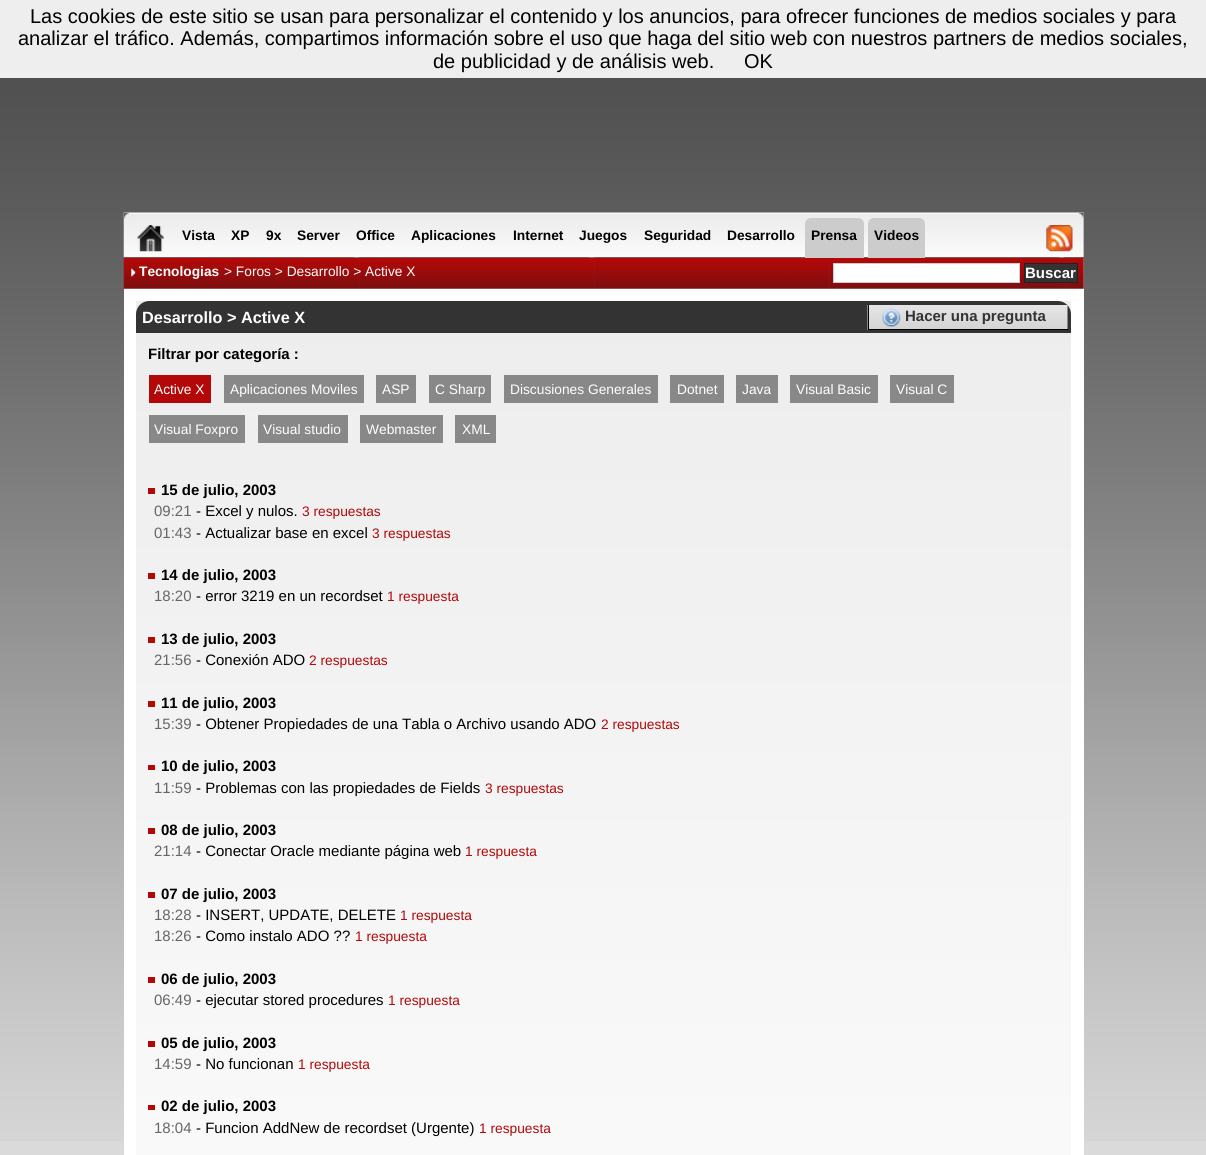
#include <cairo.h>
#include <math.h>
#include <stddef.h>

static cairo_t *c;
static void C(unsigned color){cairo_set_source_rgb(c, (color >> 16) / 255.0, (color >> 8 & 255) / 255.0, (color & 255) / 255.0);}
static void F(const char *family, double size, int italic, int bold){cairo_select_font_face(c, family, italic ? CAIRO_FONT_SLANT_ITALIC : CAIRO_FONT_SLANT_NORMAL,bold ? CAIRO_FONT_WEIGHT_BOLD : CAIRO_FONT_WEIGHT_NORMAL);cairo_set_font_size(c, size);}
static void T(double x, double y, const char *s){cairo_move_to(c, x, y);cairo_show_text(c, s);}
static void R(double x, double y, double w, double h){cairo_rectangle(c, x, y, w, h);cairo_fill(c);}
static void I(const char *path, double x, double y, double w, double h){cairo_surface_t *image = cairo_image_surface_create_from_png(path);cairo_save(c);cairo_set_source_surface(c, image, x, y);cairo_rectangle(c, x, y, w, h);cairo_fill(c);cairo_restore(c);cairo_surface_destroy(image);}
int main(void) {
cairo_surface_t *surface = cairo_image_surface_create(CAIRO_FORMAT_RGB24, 1206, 1155);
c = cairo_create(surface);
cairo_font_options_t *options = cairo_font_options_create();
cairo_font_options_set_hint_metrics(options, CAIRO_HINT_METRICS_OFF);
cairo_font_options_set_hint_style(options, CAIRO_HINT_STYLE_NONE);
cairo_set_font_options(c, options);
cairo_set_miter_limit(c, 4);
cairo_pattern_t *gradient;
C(0xdadada);
cairo_paint(c);
I("1.png",0,78,1206,1063);
C(0xeeeeee);
R(0,0,1206,78);
F("Liberation Sans",20,0,0);
C(0x000000);
T(30,23,"Las cookies de este sitio se usan para personalizar el contenido y los anuncios, para ofrecer funciones de medios sociales y para");
T(18,45,"analizar el tráfico. Además, compartimos información sobre el uso que haga del sitio web con nuestros partners de medios sociales,");
T(433,68,"de publicidad y de análisis web.");
T(744,68,"OK");
C(0xffffff);
R(124,258,960,897);
I("7.png",123,257,961,32);
C(0x1b1b1b);
R(124,213,960,45);
I("2.png",123,212,961,46);
I("3.png",124,212,5,7);
I("4.png",1078,212,6,7);
I("5.png",137,225,27,27);
F("Liberation Sans",13.75,0,1);
C(0x000000);
T(182,240,"Vista");
T(231,240,"XP");
T(266,240,"9x");
T(297,240,"Server");
T(356,240,"Office");
T(411,240,"Aplicaciones");
T(513,240,"Internet");
T(579,240,"Juegos");
T(644,240,"Seguridad");
T(727,240,"Desarrollo");
C(0xcccccc);
cairo_new_path(c);
cairo_move_to(c,811,218);
cairo_line_to(c,858,218);
cairo_curve_to(c,861.5,218,864,220.5,864,224);
cairo_line_to(c,864,258);
cairo_line_to(c,805,258);
cairo_line_to(c,805,224);
cairo_curve_to(c,805,220.5,807.5,218,811,218);
cairo_close_path(c);
cairo_fill(c);
C(0x000000);
T(811,240,"Prensa");
C(0xcccccc);
cairo_new_path(c);
cairo_move_to(c,874,218);
cairo_line_to(c,919,218);
cairo_curve_to(c,922.5,218,925,220.5,925,224);
cairo_line_to(c,925,258);
cairo_line_to(c,868,258);
cairo_line_to(c,868,224);
cairo_curve_to(c,868,220.5,870.5,218,874,218);
cairo_close_path(c);
cairo_fill(c);
C(0x000000);
T(874,240,"Videos");
I("6.png",1046,225,27,27);
I("8.png",131,268,5,9);
C(0xffffff);
T(139,276,"Tecnologias");
F("Liberation Sans",13.75,0,0);
T(224,276,"> Foros > Desarrollo > Active X");
cairo_rectangle(c,833.5,263.5,186,19);
cairo_fill_preserve(c);
C(0xcccccc);
cairo_set_line_width(c,1);
cairo_stroke(c);
C(0x333333);
cairo_rectangle(c,1024.5,263.5,53,19);
cairo_fill_preserve(c);
C(0x222222);
cairo_stroke(c);
F("Liberation Sans",15,0,1);
C(0xffffff);
T(1025,278,"Buscar");
gradient = cairo_pattern_create_linear(604,301,604,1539);
cairo_pattern_add_color_stop_rgba(gradient,0,0.929,0.929,0.929,1);
cairo_pattern_add_color_stop_rgba(gradient,1,1,1,1,1);
cairo_set_source(c,gradient);
cairo_pattern_destroy(gradient);
R(136,301,935,854);
C(0x333333);
cairo_new_path(c);
cairo_move_to(c,149,301);
cairo_line_to(c,1058,301);
cairo_curve_to(c,1065,301,1071,307,1071,314);
cairo_line_to(c,1071,333);
cairo_line_to(c,136,333);
cairo_line_to(c,136,314);
cairo_curve_to(c,136,307,142,301,149,301);
cairo_close_path(c);
cairo_fill(c);
F("Liberation Sans",16.25,0,1);
C(0xffffff);
T(142,323,"Desarrollo > Active X");
I("9.png",867,305,201,25);
C(0x000000);
R(868,329,200,1);
R(868,305,1,25);
I("10.png",882,308,19,19);
F("Liberation Sans",15,0,1);
C(0x333333);
T(905,321,"Hacer una pregunta");
C(0x000000);
T(148,359,"Filtrar por categoría :");
C(0xb20808);
R(149,375,62,28);
F("Liberation Sans",13.75,0,0);
C(0xffffff);
T(154,394,"Active X");
C(0x888888);
R(224,375,140,28);
C(0xffffff);
T(230,394,"Aplicaciones Moviles");
C(0x888888);
R(376,375,40,28);
C(0xffffff);
T(382,394,"ASP");
C(0x888888);
R(429,375,62,28);
C(0xffffff);
T(435,394,"C Sharp");
C(0x888888);
R(504,375,154,28);
C(0xffffff);
T(510,394,"Discusiones Generales");
C(0x888888);
R(670,375,54,28);
C(0xffffff);
T(677,394,"Dotnet");
C(0x888888);
R(736,375,42,28);
C(0xffffff);
T(742,394,"Java");
C(0x888888);
R(790,375,88,28);
C(0xffffff);
T(796,394,"Visual Basic");
C(0x888888);
R(890,375,64,28);
C(0xffffff);
T(896,394,"Visual C");
C(0x888888);
R(149,415,96,28);
C(0xffffff);
T(154,434,"Visual Foxpro");
C(0x888888);
R(258,415,90,28);
C(0xffffff);
T(263,434,"Visual studio");
C(0x888888);
R(360,415,83,28);
C(0xffffff);
T(366,434,"Webmaster");
C(0x888888);
R(455,415,41,28);
C(0xffffff);
T(462,434,"XML");
C(0xb20808);
R(148,488,7,6);
F("Liberation Sans",15,0,1);
C(0x000000);
T(161,495,"15 de julio, 2003");
F("Liberation Sans",15,0,0);
C(0x666666);
T(154,516,"09:21");
C(0x000000);
T(196,516,"- Excel y nulos.");
F("Liberation Sans",13.75,0,0);
C(0xb20808);
T(302,516,"3 respuestas");
F("Liberation Sans",15,0,0);
C(0x666666);
T(154,538,"01:43");
C(0x000000);
T(196,538,"- Actualizar base en excel");
F("Liberation Sans",13.75,0,0);
C(0xb20808);
T(372,538,"3 respuestas");
R(148,573,7,6);
F("Liberation Sans",15,0,1);
C(0x000000);
T(161,580,"14 de julio, 2003");
F("Liberation Sans",15,0,0);
C(0x666666);
T(154,601,"18:20");
C(0x000000);
T(196,601,"- error 3219 en un recordset");
F("Liberation Sans",13.75,0,0);
C(0xb20808);
T(387,601,"1 respuesta");
R(148,637,7,6);
F("Liberation Sans",15,0,1);
C(0x000000);
T(161,644,"13 de julio, 2003");
F("Liberation Sans",15,0,0);
C(0x666666);
T(154,665,"21:56");
C(0x000000);
T(196,665,"- Conexión ADO");
F("Liberation Sans",13.75,0,0);
C(0xb20808);
T(309,665,"2 respuestas");
R(148,701,7,6);
F("Liberation Sans",15,0,1);
C(0x000000);
T(161,708,"11 de julio, 2003");
F("Liberation Sans",15,0,0);
C(0x666666);
T(154,729,"15:39");
C(0x000000);
T(196,729,"- Obtener Propiedades de una Tabla o Archivo usando ADO");
F("Liberation Sans",13.75,0,0);
C(0xb20808);
T(601,729,"2 respuestas");
R(148,765,7,5);
F("Liberation Sans",15,0,1);
C(0x000000);
T(161,771,"10 de julio, 2003");
F("Liberation Sans",15,0,0);
C(0x666666);
T(154,793,"11:59");
C(0x000000);
T(196,793,"- Problemas con las propiedades de Fields");
F("Liberation Sans",13.75,0,0);
C(0xb20808);
T(485,793,"3 respuestas");
R(148,828,7,6);
F("Liberation Sans",15,0,1);
C(0x000000);
T(161,835,"08 de julio, 2003");
F("Liberation Sans",15,0,0);
C(0x666666);
T(154,856,"21:14");
C(0x000000);
T(196,856,"- Conectar Oracle mediante página web");
F("Liberation Sans",13.75,0,0);
C(0xb20808);
T(465,856,"1 respuesta");
R(148,892,7,6);
F("Liberation Sans",15,0,1);
C(0x000000);
T(161,899,"07 de julio, 2003");
F("Liberation Sans",15,0,0);
C(0x666666);
T(154,920,"18:28");
C(0x000000);
T(196,920,"- INSERT, UPDATE, DELETE");
F("Liberation Sans",13.75,0,0);
C(0xb20808);
T(400,920,"1 respuesta");
F("Liberation Sans",15,0,0);
C(0x666666);
T(154,941,"18:26");
C(0x000000);
T(196,941,"- Como instalo ADO ?\077");
F("Liberation Sans",13.75,0,0);
C(0xb20808);
T(355,941,"1 respuesta");
R(148,977,7,6);
F("Liberation Sans",15,0,1);
C(0x000000);
T(161,984,"06 de julio, 2003");
F("Liberation Sans",15,0,0);
C(0x666666);
T(154,1005,"06:49");
C(0x000000);
T(196,1005,"- ejecutar stored procedures");
F("Liberation Sans",13.75,0,0);
C(0xb20808);
T(388,1005,"1 respuesta");
R(148,1041,7,6);
F("Liberation Sans",15,0,1);
C(0x000000);
T(161,1048,"05 de julio, 2003");
F("Liberation Sans",15,0,0);
C(0x666666);
T(154,1069,"14:59");
C(0x000000);
T(196,1069,"- No funcionan");
F("Liberation Sans",13.75,0,0);
C(0xb20808);
T(298,1069,"1 respuesta");
R(148,1105,7,5);
F("Liberation Sans",15,0,1);
C(0x000000);
T(161,1111,"02 de julio, 2003");
F("Liberation Sans",15,0,0);
C(0x666666);
T(154,1133,"18:04");
C(0x000000);
T(196,1133,"- Funcion AddNew de recordset (Urgente)");
F("Liberation Sans",13.75,0,0);
C(0xb20808);
T(479,1133,"1 respuesta");
cairo_surface_write_to_png(surface, "o.png");
cairo_font_options_destroy(options);
cairo_destroy(c);
cairo_surface_destroy(surface);
return 0;
}
